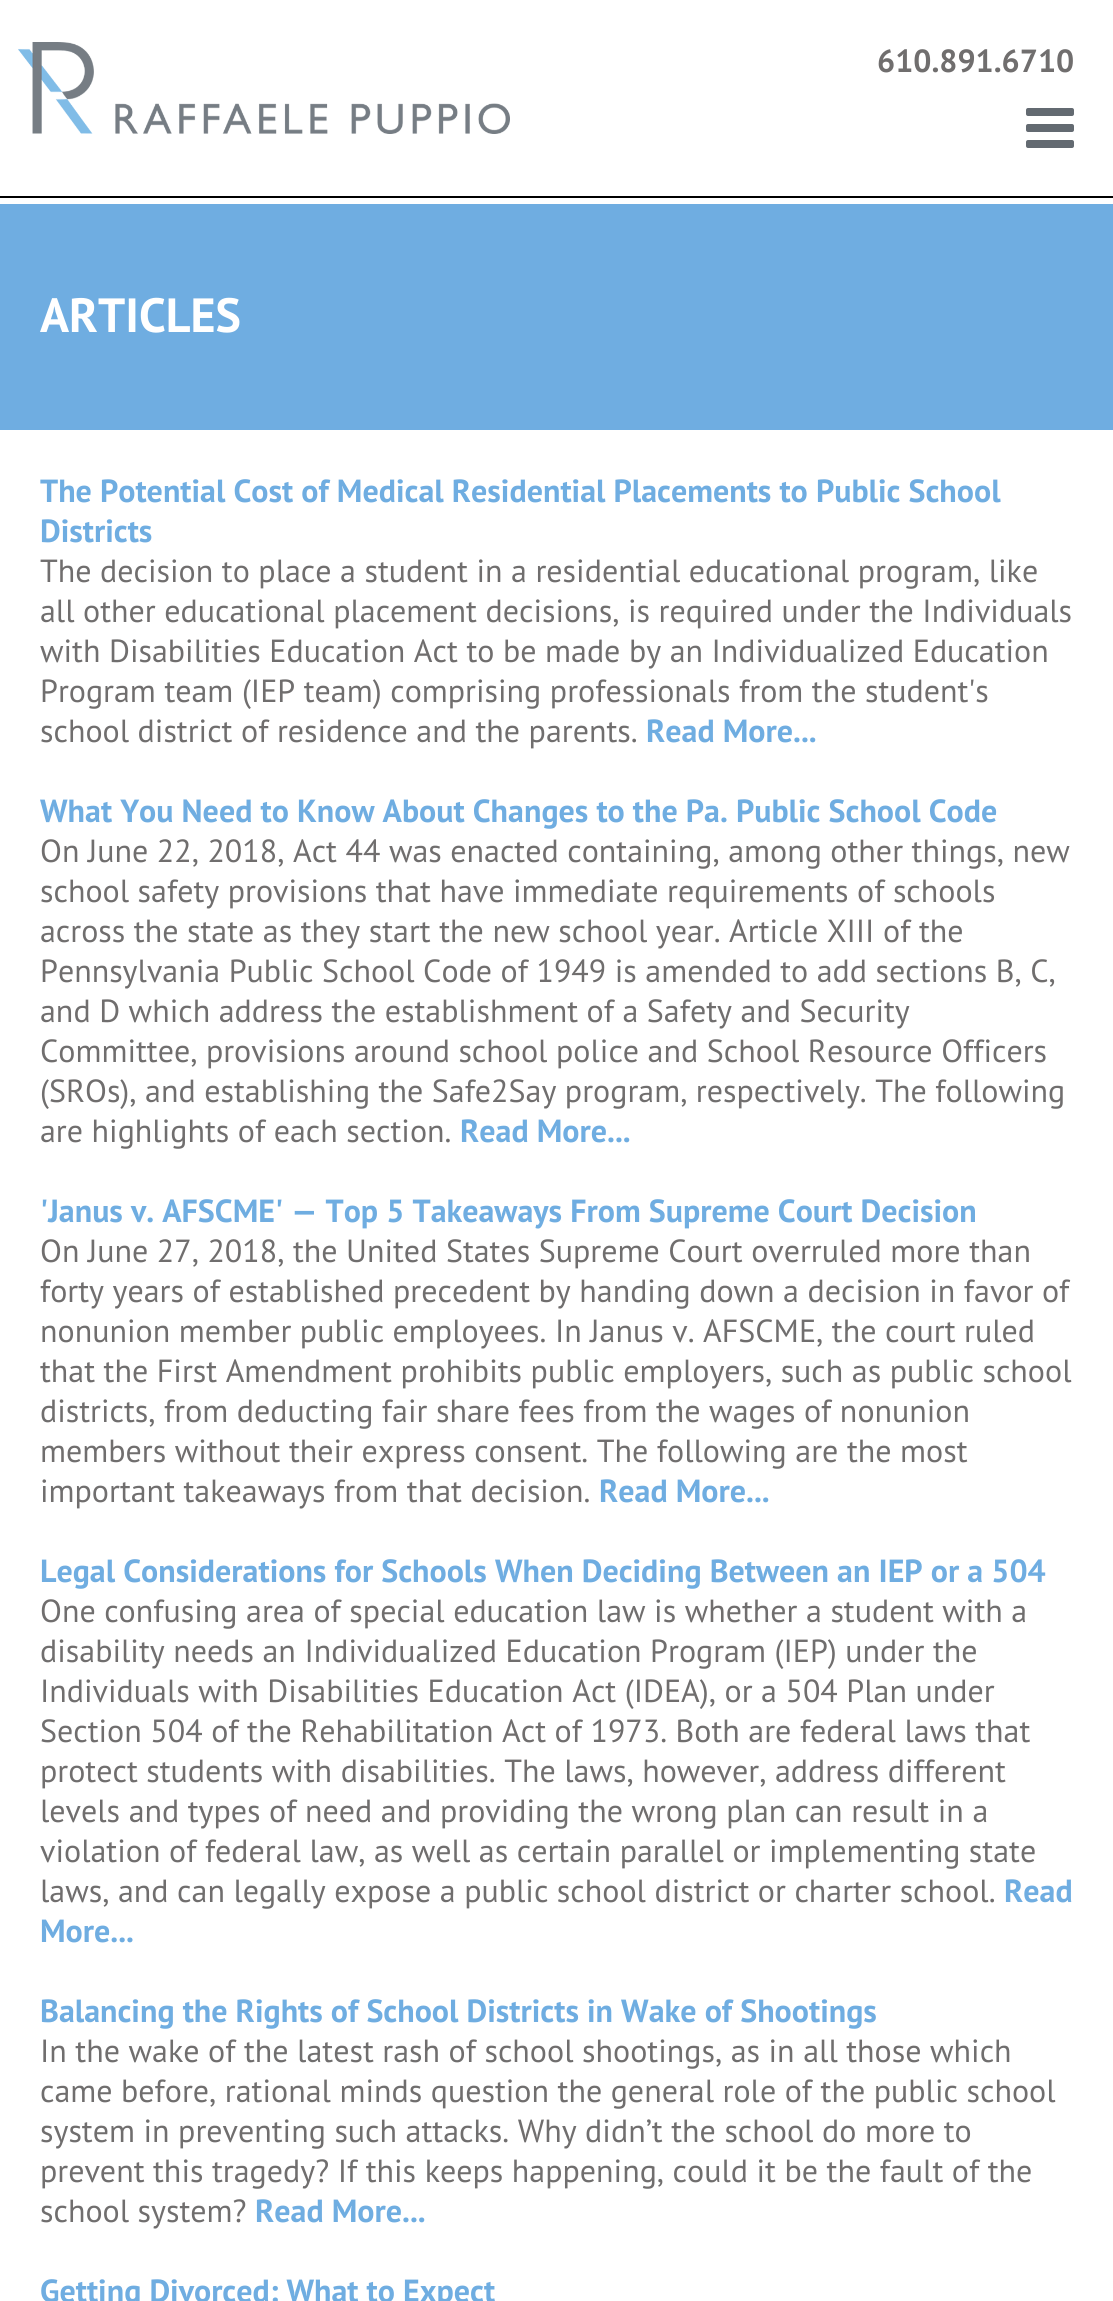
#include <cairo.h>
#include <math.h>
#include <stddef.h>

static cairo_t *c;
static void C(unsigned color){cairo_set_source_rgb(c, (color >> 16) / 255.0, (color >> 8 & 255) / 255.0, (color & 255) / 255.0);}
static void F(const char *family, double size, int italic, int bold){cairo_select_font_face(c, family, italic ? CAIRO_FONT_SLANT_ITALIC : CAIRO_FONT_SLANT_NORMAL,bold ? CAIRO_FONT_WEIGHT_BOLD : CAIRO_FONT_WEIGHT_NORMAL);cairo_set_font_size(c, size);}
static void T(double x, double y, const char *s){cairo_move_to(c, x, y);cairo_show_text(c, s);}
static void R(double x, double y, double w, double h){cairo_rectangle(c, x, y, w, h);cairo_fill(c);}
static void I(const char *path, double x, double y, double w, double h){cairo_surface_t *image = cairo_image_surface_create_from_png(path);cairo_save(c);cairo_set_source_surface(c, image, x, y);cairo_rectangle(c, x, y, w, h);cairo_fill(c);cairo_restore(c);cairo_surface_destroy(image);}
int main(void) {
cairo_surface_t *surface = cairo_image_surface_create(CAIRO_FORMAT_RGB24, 1113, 2301);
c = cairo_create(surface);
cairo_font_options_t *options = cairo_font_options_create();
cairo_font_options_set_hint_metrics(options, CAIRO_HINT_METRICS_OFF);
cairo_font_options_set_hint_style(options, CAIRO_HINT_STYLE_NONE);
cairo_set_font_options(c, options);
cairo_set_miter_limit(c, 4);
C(0xffffff);
cairo_paint(c);
C(0x000000);
R(0,196,1113,2);
I("1.png",18,42,492,92);
F("PT Sans",32,0,1);
C(0x706e6e);
T(877,72,"610.891.6710");
I("2.png",1026,108,48,40);
C(0x6fade1);
R(0,204,1113,226);
F("PT Sans",48,0,1);
C(0xffffff);
T(40,332,"ARTICLES");
F("PT Sans",32,0,1);
C(0x6fade1);
T(40,502,"The Potential Cost of Medical Residential Placements to Public School");
T(40,542,"Districts");
F("PT Sans",32,0,0);
C(0x706e6e);
T(40,582,"The decision to place a student in a residential educational program, like");
T(40,622,"all other educational placement decisions, is required under the Individuals");
T(40,662,"with Disabilities Education Act to be made by an Individualized Education");
T(40,702,"Program team (IEP team) comprising professionals from the student's");
T(40,742,"school district of residence and the parents.");
F("PT Sans",32,0,1);
C(0x6fade1);
T(646,742,"Read More...");
T(40,822,"What You Need to Know About Changes to the Pa. Public School Code");
F("PT Sans",32,0,0);
C(0x706e6e);
T(40,862,"On June 22, 2018, Act 44 was enacted containing, among other things, new");
T(40,902,"school safety provisions that have immediate requirements of schools");
T(40,942,"across the state as they start the new school year. Article XIII of the");
T(40,982,"Pennsylvania Public School Code of 1949 is amended to add sections B, C,");
T(40,1022,"and D which address the establishment of a Safety and Security");
T(40,1062,"Committee, provisions around school police and School Resource Officers");
T(40,1102,"(SROs), and establishing the Safe2Say program, respectively. The following");
T(40,1142,"are highlights of each section.");
F("PT Sans",32,0,1);
C(0x6fade1);
T(460,1142,"Read More...");
T(40,1222,"'Janus v. AFSCME' — Top 5 Takeaways From Supreme Court Decision");
F("PT Sans",32,0,0);
C(0x706e6e);
T(40,1262,"On June 27, 2018, the United States Supreme Court overruled more than");
T(40,1302,"forty years of established precedent by handing down a decision in favor of");
T(40,1342,"nonunion member public employees. In Janus v. AFSCME, the court ruled");
T(40,1382,"that the First Amendment prohibits public employers, such as public school");
T(40,1422,"districts, from deducting fair share fees from the wages of nonunion");
T(40,1462,"members without their express consent. The following are the most");
T(40,1502,"important takeaways from that decision.");
F("PT Sans",32,0,1);
C(0x6fade1);
T(599,1502,"Read More...");
T(40,1582,"Legal Considerations for Schools When Deciding Between an IEP or a 504");
F("PT Sans",32,0,0);
C(0x706e6e);
T(40,1622,"One confusing area of special education law is whether a student with a");
T(40,1662,"disability needs an Individualized Education Program (IEP) under the");
T(40,1702,"Individuals with Disabilities Education Act (IDEA), or a 504 Plan under");
T(40,1742,"Section 504 of the Rehabilitation Act of 1973. Both are federal laws that");
T(40,1782,"protect students with disabilities. The laws, however, address different");
T(40,1822,"levels and types of need and providing the wrong plan can result in a");
T(40,1862,"violation of federal law, as well as certain parallel or implementing state");
T(40,1902,"laws, and can legally expose a public school district or charter school.");
F("PT Sans",32,0,1);
C(0x6fade1);
T(1004,1902,"Read");
T(40,1942,"More...");
T(40,2022,"Balancing the Rights of School Districts in Wake of Shootings");
F("PT Sans",32,0,0);
C(0x706e6e);
T(40,2062,"In the wake of the latest rash of school shootings, as in all those which");
T(40,2102,"came before, rational minds question the general role of the public school");
T(40,2142,"system in preventing such attacks. Why didn’t the school do more to");
T(40,2182,"prevent this tragedy? If this keeps happening, could it be the fault of the");
T(40,2222,"school system?");
F("PT Sans",32,0,1);
C(0x6fade1);
T(255,2222,"Read More...");
T(40,2302,"Getting Divorced: What to Expect");
cairo_surface_write_to_png(surface, "o.png");
cairo_font_options_destroy(options);
cairo_destroy(c);
cairo_surface_destroy(surface);
return 0;
}
